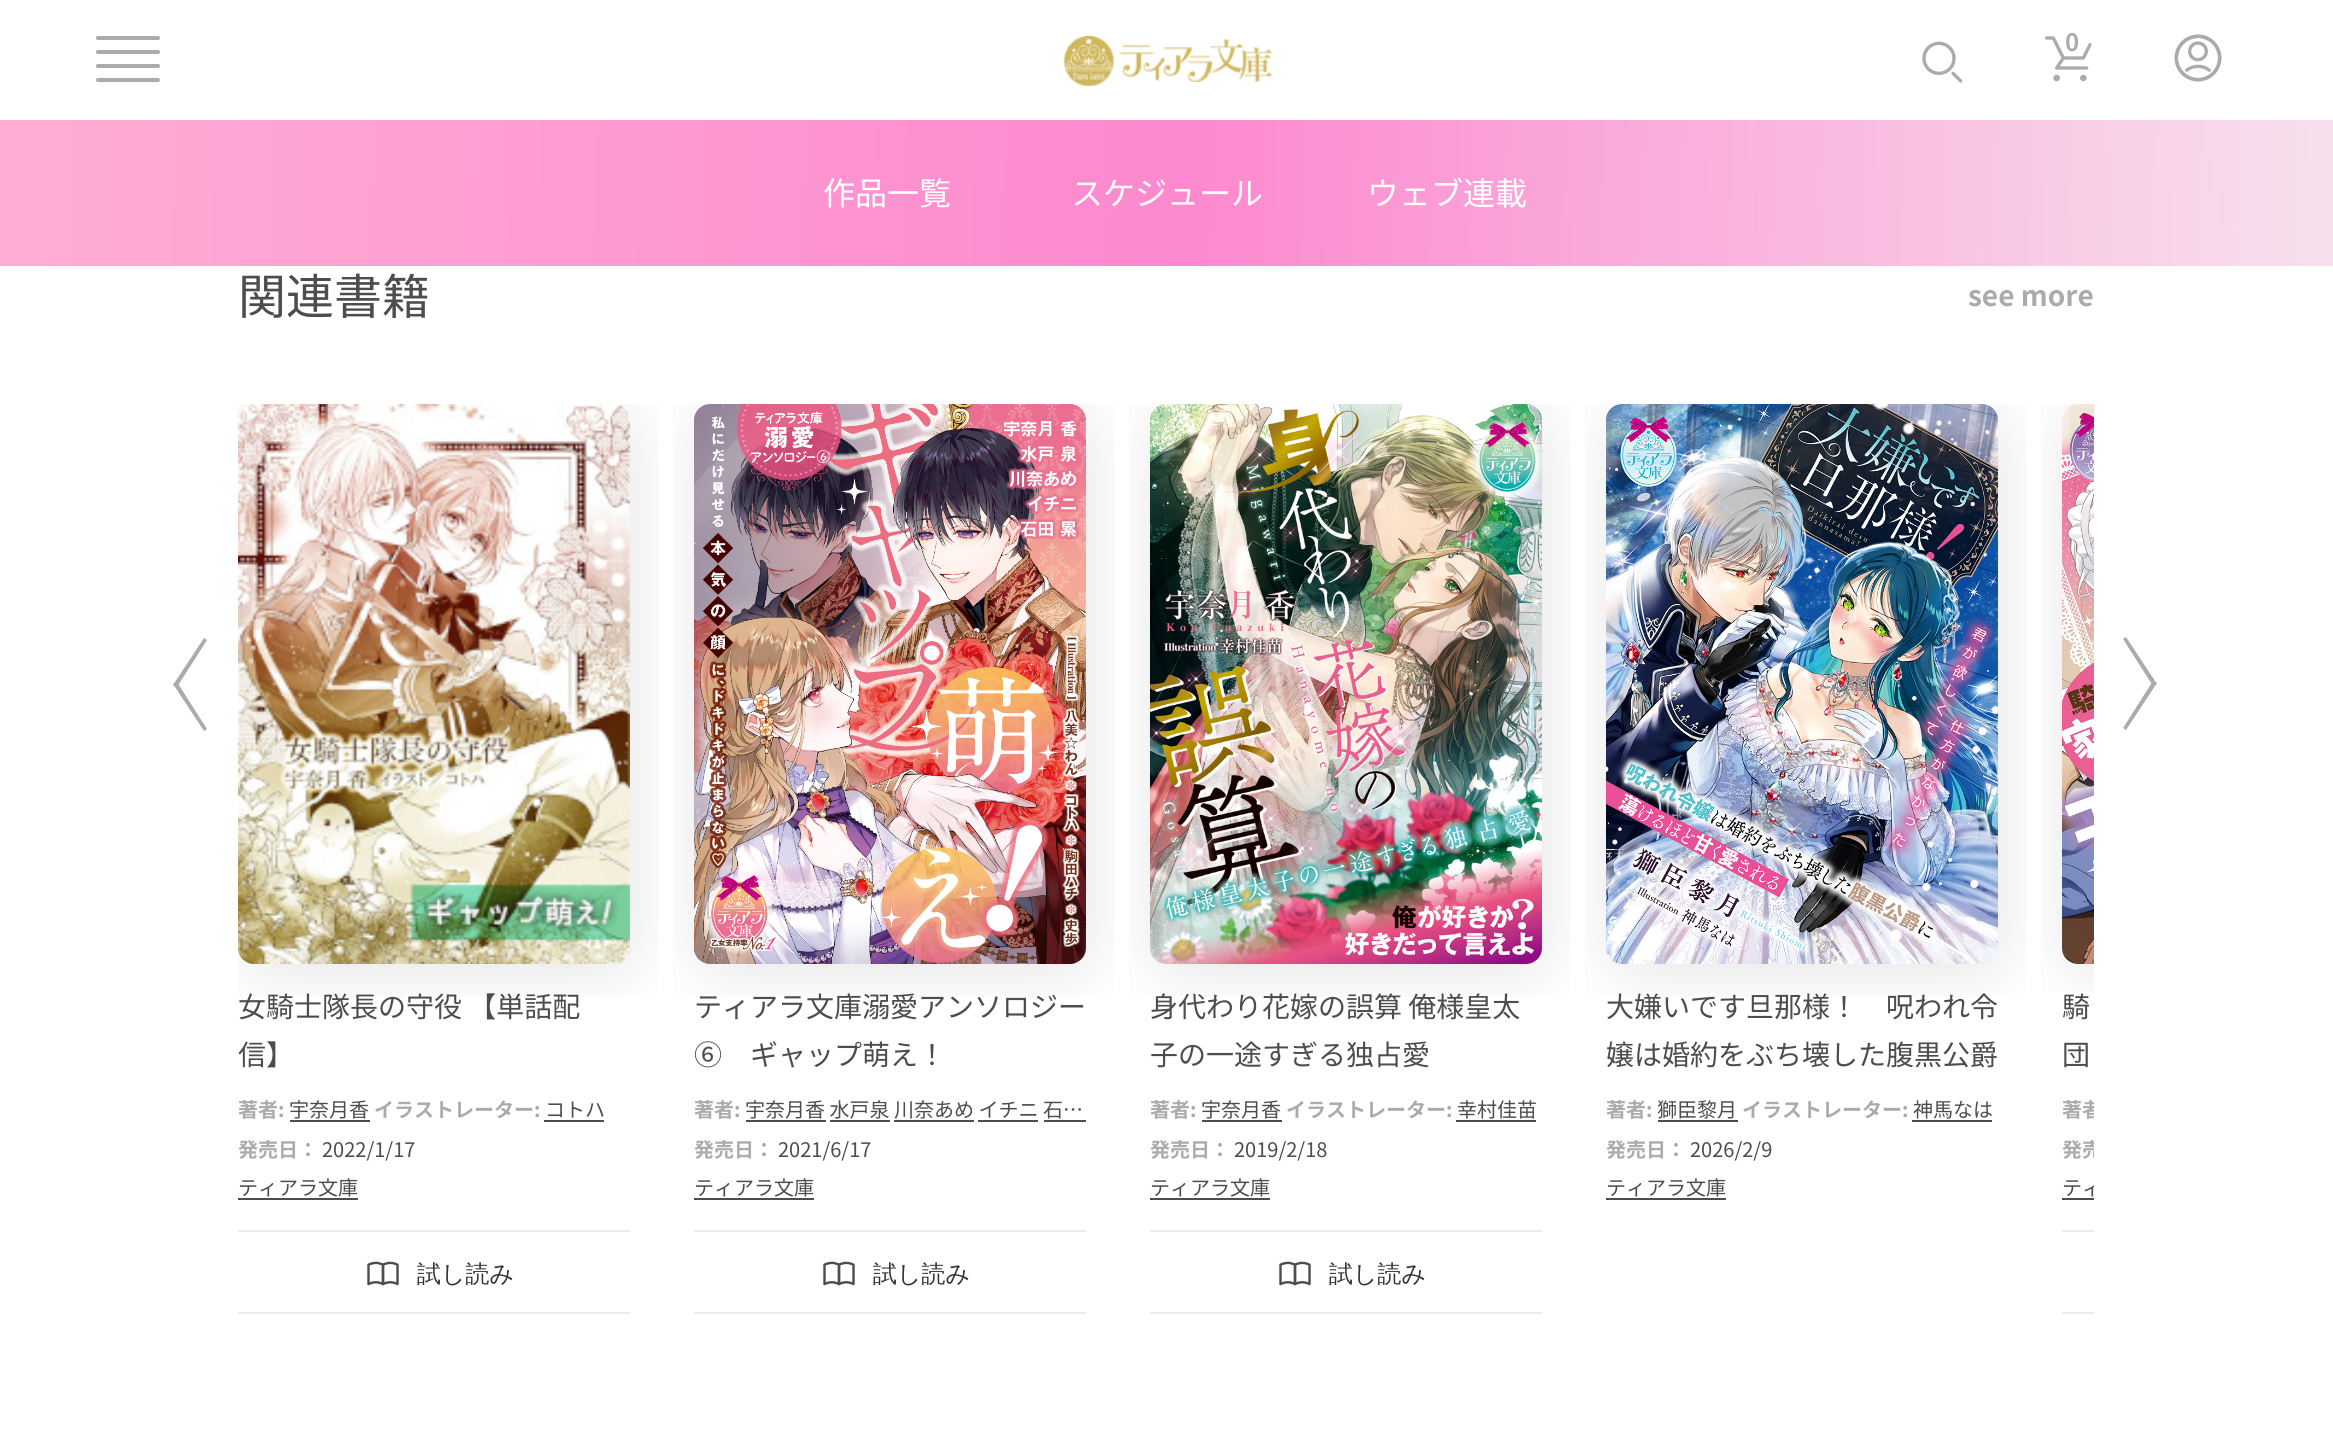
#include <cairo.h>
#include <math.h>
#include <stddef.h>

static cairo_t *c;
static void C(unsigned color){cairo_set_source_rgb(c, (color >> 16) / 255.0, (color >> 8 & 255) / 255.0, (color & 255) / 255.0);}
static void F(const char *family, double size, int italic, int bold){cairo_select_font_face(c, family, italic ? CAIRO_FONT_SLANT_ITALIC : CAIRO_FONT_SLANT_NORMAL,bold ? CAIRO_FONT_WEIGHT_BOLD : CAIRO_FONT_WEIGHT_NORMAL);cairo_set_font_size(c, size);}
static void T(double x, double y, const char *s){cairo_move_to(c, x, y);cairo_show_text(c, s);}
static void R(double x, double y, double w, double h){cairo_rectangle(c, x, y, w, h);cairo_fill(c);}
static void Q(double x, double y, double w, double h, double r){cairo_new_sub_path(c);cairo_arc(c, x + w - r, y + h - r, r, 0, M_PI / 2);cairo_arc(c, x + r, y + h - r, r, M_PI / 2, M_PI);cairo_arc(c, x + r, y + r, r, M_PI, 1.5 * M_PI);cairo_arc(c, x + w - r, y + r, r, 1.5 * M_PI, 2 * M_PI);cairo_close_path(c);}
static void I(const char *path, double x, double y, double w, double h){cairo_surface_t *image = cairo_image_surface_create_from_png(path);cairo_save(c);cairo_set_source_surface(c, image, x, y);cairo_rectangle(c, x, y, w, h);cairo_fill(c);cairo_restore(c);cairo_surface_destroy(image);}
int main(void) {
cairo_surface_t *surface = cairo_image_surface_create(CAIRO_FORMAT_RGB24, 2333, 1451);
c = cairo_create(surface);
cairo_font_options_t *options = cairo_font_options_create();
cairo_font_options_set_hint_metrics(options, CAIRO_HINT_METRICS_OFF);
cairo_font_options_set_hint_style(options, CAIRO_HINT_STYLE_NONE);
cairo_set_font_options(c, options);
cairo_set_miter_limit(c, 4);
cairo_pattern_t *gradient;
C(0xffffff);
cairo_paint(c);
I("1.png",1063,36,210,50);
C(0xababab);
Q(96,36,64,4,2);
cairo_fill(c);
Q(96,50,64,4,2);
cairo_fill(c);
Q(96,64,64,4,2);
cairo_fill(c);
Q(96,78,64,4,2);
cairo_fill(c);
I("2.png",1922,41,41,42);
F("Noto Sans JP",24,0,1);
T(2065,51,"0");
I("3.png",2045,36,47,46);
I("4.png",2174,34,48,48);
gradient = cairo_pattern_create_linear(-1.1,158,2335,228);
cairo_pattern_add_color_stop_rgba(gradient,.01,1,0.675,0.831,1);
cairo_pattern_add_color_stop_rgba(gradient,.51,0.988,0.537,0.808,1);
cairo_pattern_add_color_stop_rgba(gradient,.99,0.969,0.875,0.929,1);
cairo_set_source(c,gradient);
cairo_pattern_destroy(gradient);
R(0,120,2333,146);
F("Noto Sans JP",32,0,0);
C(0xffffff);
T(823,205,"作品一覧");
T(1071,205,"スケジュール");
T(1367,205,"ウェブ連載");
F("Noto Sans JP",48,0,0);
C(0x4c4d4d);
T(238,314,"関連書籍");
F("Noto Sans JP",28,0,1);
C(0xababab);
T(1968,306,"see more");
cairo_new_path(c);
cairo_move_to(c,207,729);
cairo_line_to(c,204,731);
cairo_line_to(c,173,684);
cairo_line_to(c,177,682);
cairo_close_path(c);
cairo_fill(c);
cairo_new_path(c);
cairo_move_to(c,177,687);
cairo_line_to(c,173,685);
cairo_line_to(c,204,638);
cairo_line_to(c,207,640);
cairo_close_path(c);
cairo_fill(c);
cairo_new_path(c);
cairo_move_to(c,2153,681);
cairo_line_to(c,2157,683);
cairo_line_to(c,2126,730);
cairo_line_to(c,2123,728);
cairo_close_path(c);
cairo_fill(c);
cairo_new_path(c);
cairo_move_to(c,2123,639);
cairo_line_to(c,2126,637);
cairo_line_to(c,2157,684);
cairo_line_to(c,2153,686);
cairo_close_path(c);
cairo_fill(c);
F("Noto Sans JP",28,0,0);
C(0x4c4d4d);
T(238,1017,"女騎士隊長の守役 【単話配");
I("5.png",238,404,421,593);
T(238,1065,"信】");
F("Noto Sans JP",20,0,1);
C(0xababab);
T(238,1117,"著者:");
F("Noto Sans JP",20,0,0);
C(0x4c4d4d);
T(289,1117,"宇奈月香");
R(290,1120,80,2);
F("Noto Sans JP",20,0,1);
C(0xababab);
T(374,1117,"イラストレーター:");
F("Noto Sans JP",20,0,0);
C(0x4c4d4d);
T(545,1117,"コトハ");
R(544,1120,60,2);
F("Noto Sans JP",20,0,1);
C(0xababab);
T(238,1157,"発売日：");
F("Noto Sans JP",20,0,0);
C(0x4c4d4d);
T(322,1157,"2022/1/17");
T(238,1195,"ティアラ文庫");
R(238,1198,120,2);
C(0xeaeaea);
R(238,1230,392,2);
R(238,1312,392,2);
I("6.png",367,1261,32,25);
F("WenQuanYi Zen Hei Medium",24,0,0);
C(0x333333);
T(417,1282,"試し読み");
F("Noto Sans JP",28,0,0);
C(0x4c4d4d);
T(694,1017,"ティアラ文庫溺愛アンソロジー");
I("7.png",673,404,442,593);
T(694,1065,"⑥　ギャップ萌え！");
F("Noto Sans JP",20,0,1);
C(0xababab);
T(694,1117,"著者:");
F("Noto Sans JP",20,0,0);
C(0x4c4d4d);
T(745,1117,"宇奈月香 水戸泉 川奈あめ イチニ 石…");
R(746,1120,80,2);
R(830,1120,60,2);
R(894,1120,80,2);
R(978,1120,60,2);
R(1044,1120,42,2);
F("Noto Sans JP",20,0,1);
C(0xababab);
T(694,1157,"発売日：");
F("Noto Sans JP",20,0,0);
C(0x4c4d4d);
T(778,1157,"2021/6/17");
T(694,1195,"ティアラ文庫");
R(694,1198,120,2);
C(0xeaeaea);
R(694,1230,392,2);
R(694,1312,392,2);
I("6.png",823,1261,32,25);
F("WenQuanYi Zen Hei Medium",24,0,0);
C(0x333333);
T(873,1282,"試し読み");
F("Noto Sans JP",28,0,0);
C(0x4c4d4d);
T(1150,1017,"身代わり花嫁の誤算 俺様皇太");
I("8.png",1129,404,442,593);
T(1150,1065,"子の一途すぎる独占愛");
F("Noto Sans JP",20,0,1);
C(0xababab);
T(1150,1117,"著者:");
F("Noto Sans JP",20,0,0);
C(0x4c4d4d);
T(1201,1117,"宇奈月香");
R(1202,1120,80,2);
F("Noto Sans JP",20,0,1);
C(0xababab);
T(1286,1117,"イラストレーター:");
F("Noto Sans JP",20,0,0);
C(0x4c4d4d);
T(1457,1117,"幸村佳苗");
R(1456,1120,80,2);
F("Noto Sans JP",20,0,1);
C(0xababab);
T(1150,1157,"発売日：");
F("Noto Sans JP",20,0,0);
C(0x4c4d4d);
T(1234,1157,"2019/2/18");
T(1150,1195,"ティアラ文庫");
R(1150,1198,120,2);
C(0xeaeaea);
R(1150,1230,392,2);
R(1150,1312,392,2);
I("6.png",1279,1261,32,25);
F("WenQuanYi Zen Hei Medium",24,0,0);
C(0x333333);
T(1329,1282,"試し読み");
F("Noto Sans JP",28,0,0);
C(0x4c4d4d);
T(1606,1017,"大嫌いです旦那様！　呪われ令");
I("9.png",1585,404,442,593);
T(1606,1065,"嬢は婚約をぶち壊した腹黒公爵");
F("Noto Sans JP",20,0,1);
C(0xababab);
T(1606,1117,"著者:");
F("Noto Sans JP",20,0,0);
C(0x4c4d4d);
T(1657,1117,"獅臣黎月");
R(1658,1120,80,2);
F("Noto Sans JP",20,0,1);
C(0xababab);
T(1742,1117,"イラストレーター:");
F("Noto Sans JP",20,0,0);
C(0x4c4d4d);
T(1913,1117,"神馬なは");
R(1912,1120,80,2);
F("Noto Sans JP",20,0,1);
C(0xababab);
T(1606,1157,"発売日：");
F("Noto Sans JP",20,0,0);
C(0x4c4d4d);
T(1690,1157,"2026/2/9");
T(1606,1195,"ティアラ文庫");
R(1606,1198,120,2);
I("10.png",2041,404,53,588);
F("Noto Sans JP",28,0,0);
T(2062,1017,"騎");
T(2062,1065,"団");
cairo_save(c);
cairo_rectangle(c,2062,1094,32,32);
cairo_clip(c);
F("Noto Sans JP",20,0,1);
C(0xababab);
T(2062,1117,"著者");
cairo_restore(c);
cairo_save(c);
cairo_rectangle(c,2062,1134,32,32);
cairo_clip(c);
F("Noto Sans JP",20,0,1);
C(0xababab);
T(2062,1157,"発売");
cairo_restore(c);
cairo_save(c);
cairo_rectangle(c,238,404,1856,910);
cairo_clip(c);
F("Noto Sans JP",20,0,0);
T(2062,1195,"ティ");
cairo_restore(c);
R(2062,1198,32,2);
C(0xeaeaea);
R(2062,1230,32,2);
R(2062,1312,32,2);
cairo_surface_write_to_png(surface, "o.png");
cairo_font_options_destroy(options);
cairo_destroy(c);
cairo_surface_destroy(surface);
return 0;
}
